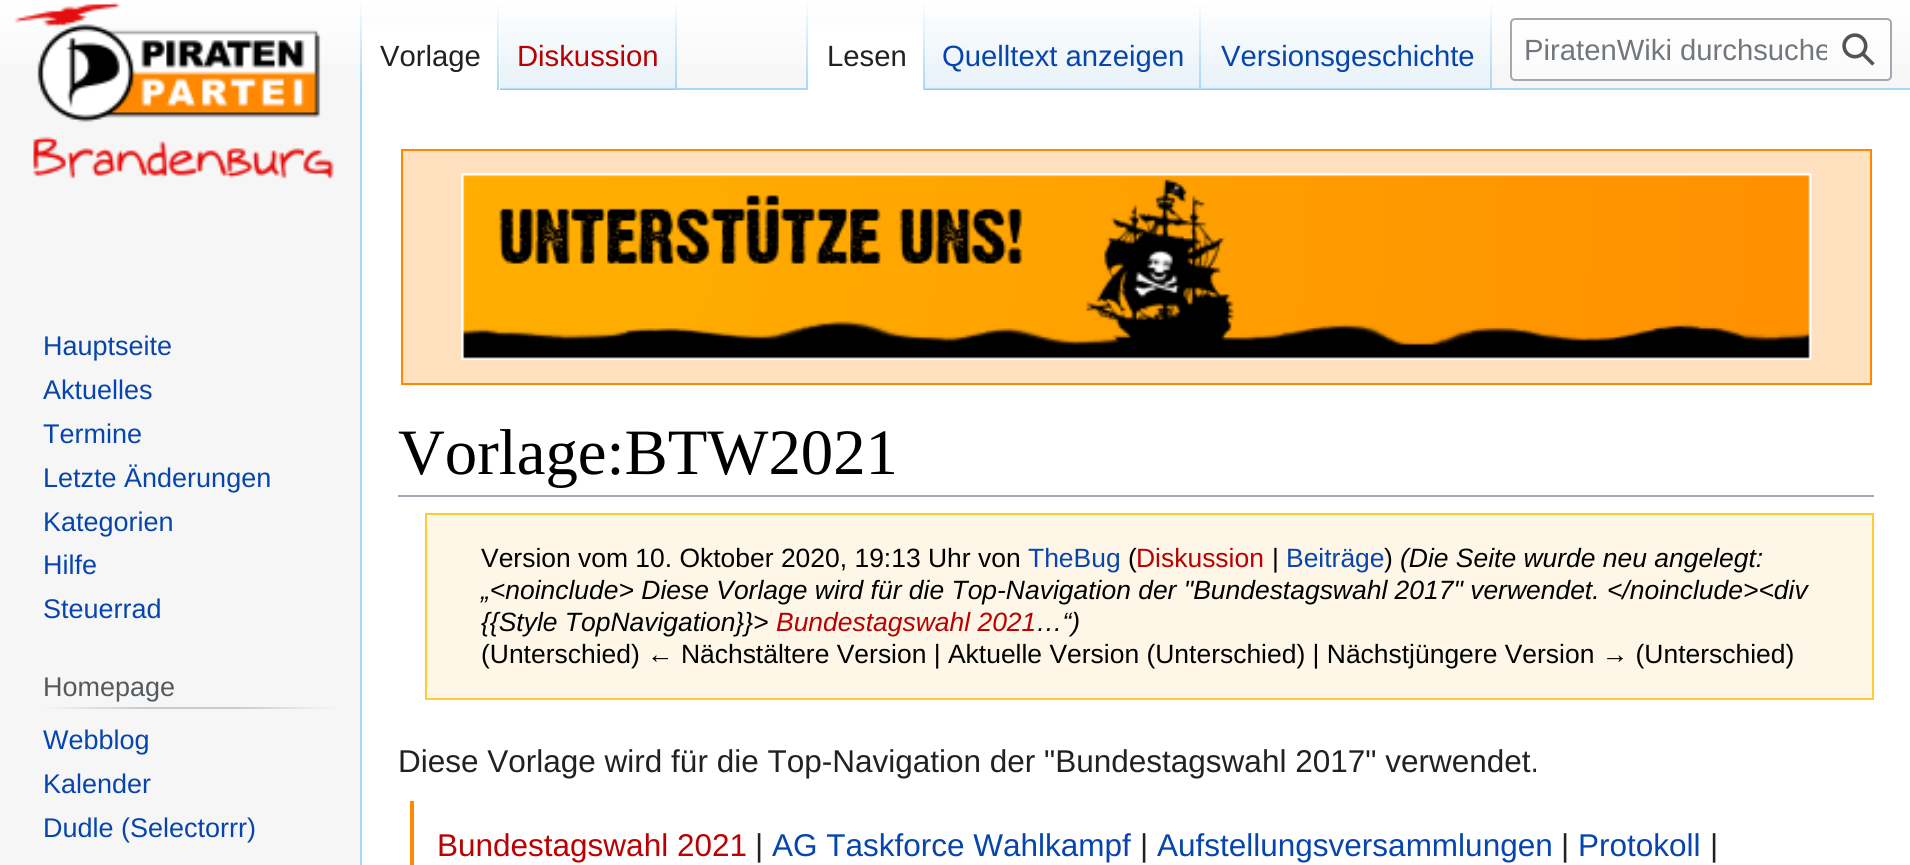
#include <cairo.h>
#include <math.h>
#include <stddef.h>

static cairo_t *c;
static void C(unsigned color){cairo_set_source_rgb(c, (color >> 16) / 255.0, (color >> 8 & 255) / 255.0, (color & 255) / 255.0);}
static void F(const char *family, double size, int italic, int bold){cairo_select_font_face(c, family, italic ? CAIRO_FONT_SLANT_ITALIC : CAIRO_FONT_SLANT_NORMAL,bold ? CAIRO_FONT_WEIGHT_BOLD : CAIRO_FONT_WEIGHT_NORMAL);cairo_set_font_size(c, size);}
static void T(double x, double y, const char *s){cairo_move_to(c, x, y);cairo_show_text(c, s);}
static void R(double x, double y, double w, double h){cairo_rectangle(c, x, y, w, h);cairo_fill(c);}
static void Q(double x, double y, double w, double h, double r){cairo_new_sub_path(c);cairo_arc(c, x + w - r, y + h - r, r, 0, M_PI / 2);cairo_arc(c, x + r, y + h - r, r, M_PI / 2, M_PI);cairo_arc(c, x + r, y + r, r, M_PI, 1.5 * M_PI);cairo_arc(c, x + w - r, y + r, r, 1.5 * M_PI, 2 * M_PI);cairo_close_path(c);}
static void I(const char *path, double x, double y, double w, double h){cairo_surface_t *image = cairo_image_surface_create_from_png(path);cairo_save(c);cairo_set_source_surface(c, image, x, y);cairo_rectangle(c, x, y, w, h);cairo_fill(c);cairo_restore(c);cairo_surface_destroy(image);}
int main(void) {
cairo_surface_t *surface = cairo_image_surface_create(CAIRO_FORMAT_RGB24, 1910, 865);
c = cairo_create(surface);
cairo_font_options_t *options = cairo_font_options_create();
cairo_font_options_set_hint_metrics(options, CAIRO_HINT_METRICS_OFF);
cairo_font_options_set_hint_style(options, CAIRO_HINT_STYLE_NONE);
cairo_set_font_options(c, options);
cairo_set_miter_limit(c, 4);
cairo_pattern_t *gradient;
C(0xf6f6f6);
cairo_paint(c);
gradient = cairo_pattern_create_linear(955,-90,955,90);
cairo_pattern_add_color_stop_rgba(gradient,.5,1,1,1,1);
cairo_pattern_add_color_stop_rgba(gradient,1,0.965,0.965,0.965,1);
cairo_set_source(c,gradient);
cairo_pattern_destroy(gradient);
R(0,0,1910,65);
C(0xa7d7f9);
R(360,88,2,777);
gradient = cairo_pattern_create_linear(361,0,361,90);
cairo_pattern_add_color_stop_rgba(gradient,0,0.655,0.843,0.976,0);
cairo_pattern_add_color_stop_rgba(gradient,1,0.655,0.843,0.976,1);
cairo_set_source(c,gradient);
cairo_pattern_destroy(gradient);
R(360,0,2,90);
C(0xffffff);
R(362,25,138,65);
gradient = cairo_pattern_create_linear(498,0,498,90);
cairo_pattern_add_color_stop_rgba(gradient,0,1,1,1,1);
cairo_pattern_add_color_stop_rgba(gradient,1,0.655,0.843,0.976,1);
cairo_set_source(c,gradient);
cairo_pattern_destroy(gradient);
R(497,0,2,90);
F("Liberation Sans",29.25,0,0);
C(0x202122);
T(380,66,"Vorlage");
gradient = cairo_pattern_create_linear(588,90,588,0);
cairo_pattern_add_color_stop_rgba(gradient,0,0.467,0.757,0.965,1);
cairo_pattern_add_color_stop_rgba(gradient,.03,0.91,0.949,0.973,1);
cairo_pattern_add_color_stop_rgba(gradient,1,1,1,1,1);
cairo_set_source(c,gradient);
cairo_pattern_destroy(gradient);
R(500,13,177,77);
gradient = cairo_pattern_create_linear(676,0,676,90);
cairo_pattern_add_color_stop_rgba(gradient,0,0.655,0.843,0.976,0);
cairo_pattern_add_color_stop_rgba(gradient,1,0.655,0.843,0.976,1);
cairo_set_source(c,gradient);
cairo_pattern_destroy(gradient);
R(675,0,2,90);
C(0xba0000);
T(517,66,"Diskussion");
C(0xa7d7f9);
R(677,88,1233,2);
gradient = cairo_pattern_create_linear(807,0,807,90);
cairo_pattern_add_color_stop_rgba(gradient,0,0.655,0.843,0.976,0);
cairo_pattern_add_color_stop_rgba(gradient,1,0.655,0.843,0.976,1);
cairo_set_source(c,gradient);
cairo_pattern_destroy(gradient);
R(806,0,2,90);
C(0xffffff);
R(808,25,115,65);
gradient = cairo_pattern_create_linear(924,0,924,90);
cairo_pattern_add_color_stop_rgba(gradient,0,1,1,1,1);
cairo_pattern_add_color_stop_rgba(gradient,1,0.655,0.843,0.976,1);
cairo_set_source(c,gradient);
cairo_pattern_destroy(gradient);
R(923,0,2,90);
C(0x202122);
T(827,66,"Lesen");
gradient = cairo_pattern_create_linear(1063,90,1063,0);
cairo_pattern_add_color_stop_rgba(gradient,0,0.467,0.757,0.965,1);
cairo_pattern_add_color_stop_rgba(gradient,.03,0.91,0.949,0.973,1);
cairo_pattern_add_color_stop_rgba(gradient,1,1,1,1,1);
cairo_set_source(c,gradient);
cairo_pattern_destroy(gradient);
R(925,13,277,77);
gradient = cairo_pattern_create_linear(1200,0,1200,90);
cairo_pattern_add_color_stop_rgba(gradient,0,0.655,0.843,0.976,0);
cairo_pattern_add_color_stop_rgba(gradient,1,0.655,0.843,0.976,1);
cairo_set_source(c,gradient);
cairo_pattern_destroy(gradient);
R(1199,0,2,90);
C(0x0645ad);
T(942,66,"Quelltext anzeigen");
gradient = cairo_pattern_create_linear(1347,90,1347,0);
cairo_pattern_add_color_stop_rgba(gradient,0,0.467,0.757,0.965,1);
cairo_pattern_add_color_stop_rgba(gradient,.03,0.91,0.949,0.973,1);
cairo_pattern_add_color_stop_rgba(gradient,1,1,1,1,1);
cairo_set_source(c,gradient);
cairo_pattern_destroy(gradient);
R(1202,13,290,77);
gradient = cairo_pattern_create_linear(1491,0,1491,90);
cairo_pattern_add_color_stop_rgba(gradient,0,0.655,0.843,0.976,0);
cairo_pattern_add_color_stop_rgba(gradient,1,0.655,0.843,0.976,1);
cairo_set_source(c,gradient);
cairo_pattern_destroy(gradient);
R(1490,0,2,90);
C(0x0645ad);
T(1221,66,"Versionsgeschichte");
cairo_set_source_rgba(c,1,1,1,0.5);
Q(1511,19,380,61,4);
cairo_fill_preserve(c);
C(0xa2a9b1);
cairo_stroke(c);
cairo_save(c);
cairo_rectangle(c,1523,34,304,34);
cairo_clip(c);
C(0x72777d);
T(1524,60,"PiratenWiki durchsuche");
cairo_restore(c);
I("1.png",1842,33,33,33);
I("2.png",14,2,320,177);
F("Liberation Sans",27,0,0);
C(0x0645ad);
T(43,355,"Hauptseite");
T(43,399,"Aktuelles");
T(43,443,"Termine");
T(43,487,"Letzte Änderungen");
T(43,531,"Kategorien");
T(43,574,"Hilfe");
T(43,618,"Steuerrad");
gradient = cairo_pattern_create_linear(43,708,338,708);
cairo_pattern_add_color_stop_rgba(gradient,0,0.965,0.965,0.965,1);
cairo_pattern_add_color_stop_rgba(gradient,.33,0.784,0.8,0.82,1);
cairo_pattern_add_color_stop_rgba(gradient,.66,0.784,0.8,0.82,1);
cairo_pattern_add_color_stop_rgba(gradient,1,0.965,0.965,0.965,1);
cairo_set_source(c,gradient);
cairo_pattern_destroy(gradient);
R(43,707,295,2);
C(0x54595d);
T(43,696,"Homepage");
C(0x0645ad);
T(43,749,"Webblog");
T(43,793,"Kalender");
T(43,837,"Dudle (Selectorrr)");
C(0xffffff);
R(362,90,1548,775);
C(0xffe1bf);
cairo_rectangle(c,402,150,1469,234);
cairo_fill_preserve(c);
C(0xff8800);
cairo_stroke(c);
I("3.png",461,173,1351,187);
C(0xa2a9b1);
R(398,495,1476,2);
F("Liberation Serif",64.75,0,0);
C(0x000000);
T(398,474,"Vorlage:BTW2021");
C(0xfef6e7);
cairo_rectangle(c,426,514,1447,185);
cairo_fill_preserve(c);
C(0xffcc33);
cairo_stroke(c);
F("Liberation Sans",26.45,0,0);
C(0x000000);
T(481,567,"Version vom 10. Oktober 2020, 19:13 Uhr von");
C(0x0645ad);
T(1028,567,"TheBug");
C(0x000000);
T(1128,567,"(");
C(0xba0000);
T(1136,567,"Diskussion");
C(0x000000);
T(1272,567,"|");
C(0x0645ad);
T(1286,567,"Beiträge");
C(0x000000);
T(1384,567,")");
F("Liberation Sans",26.45,1,0);
T(1400,567,"(Die Seite wurde neu angelegt:");
T(481,599,"„<noinclude> Diese Vorlage wird für die Top-Navigation der \"Bundestagswahl 2017\" verwendet. </noinclude><div");
T(481,631,"{{Style TopNavigation}}>");
C(0xba0000);
T(776,631,"Bundestagswahl 2021");
C(0x000000);
T(1036,631,"…“)");
F("Liberation Sans",26.45,0,0);
T(481,663,"(Unterschied) ← Nächstältere Version | Aktuelle Version (Unterschied) | Nächstjüngere Version → (Unterschied)");
F("Liberation Sans",31.5,0,0);
C(0x202122);
T(398,772,"Diese Vorlage wird für die Top-Navigation der \"Bundestagswahl 2017\" verwendet.");
C(0xff8800);
cairo_new_path(c);
cairo_move_to(c,410,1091);
cairo_line_to(c,410,801);
cairo_line_to(c,414,801);
cairo_line_to(c,414,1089);
cairo_close_path(c);
cairo_fill(c);
C(0xba0000);
T(437,856,"Bundestagswahl 2021");
C(0x202122);
T(755,856,"|");
C(0x0645ad);
T(772,856,"AG Taskforce Wahlkampf");
C(0x202122);
T(1140,856,"|");
C(0x0645ad);
T(1157,856,"Aufstellungsversammlungen");
C(0x202122);
T(1561,856,"|");
C(0x0645ad);
T(1578,856,"Protokoll");
C(0x202122);
T(1710,856,"|");
cairo_surface_write_to_png(surface, "o.png");
cairo_font_options_destroy(options);
cairo_destroy(c);
cairo_surface_destroy(surface);
return 0;
}
